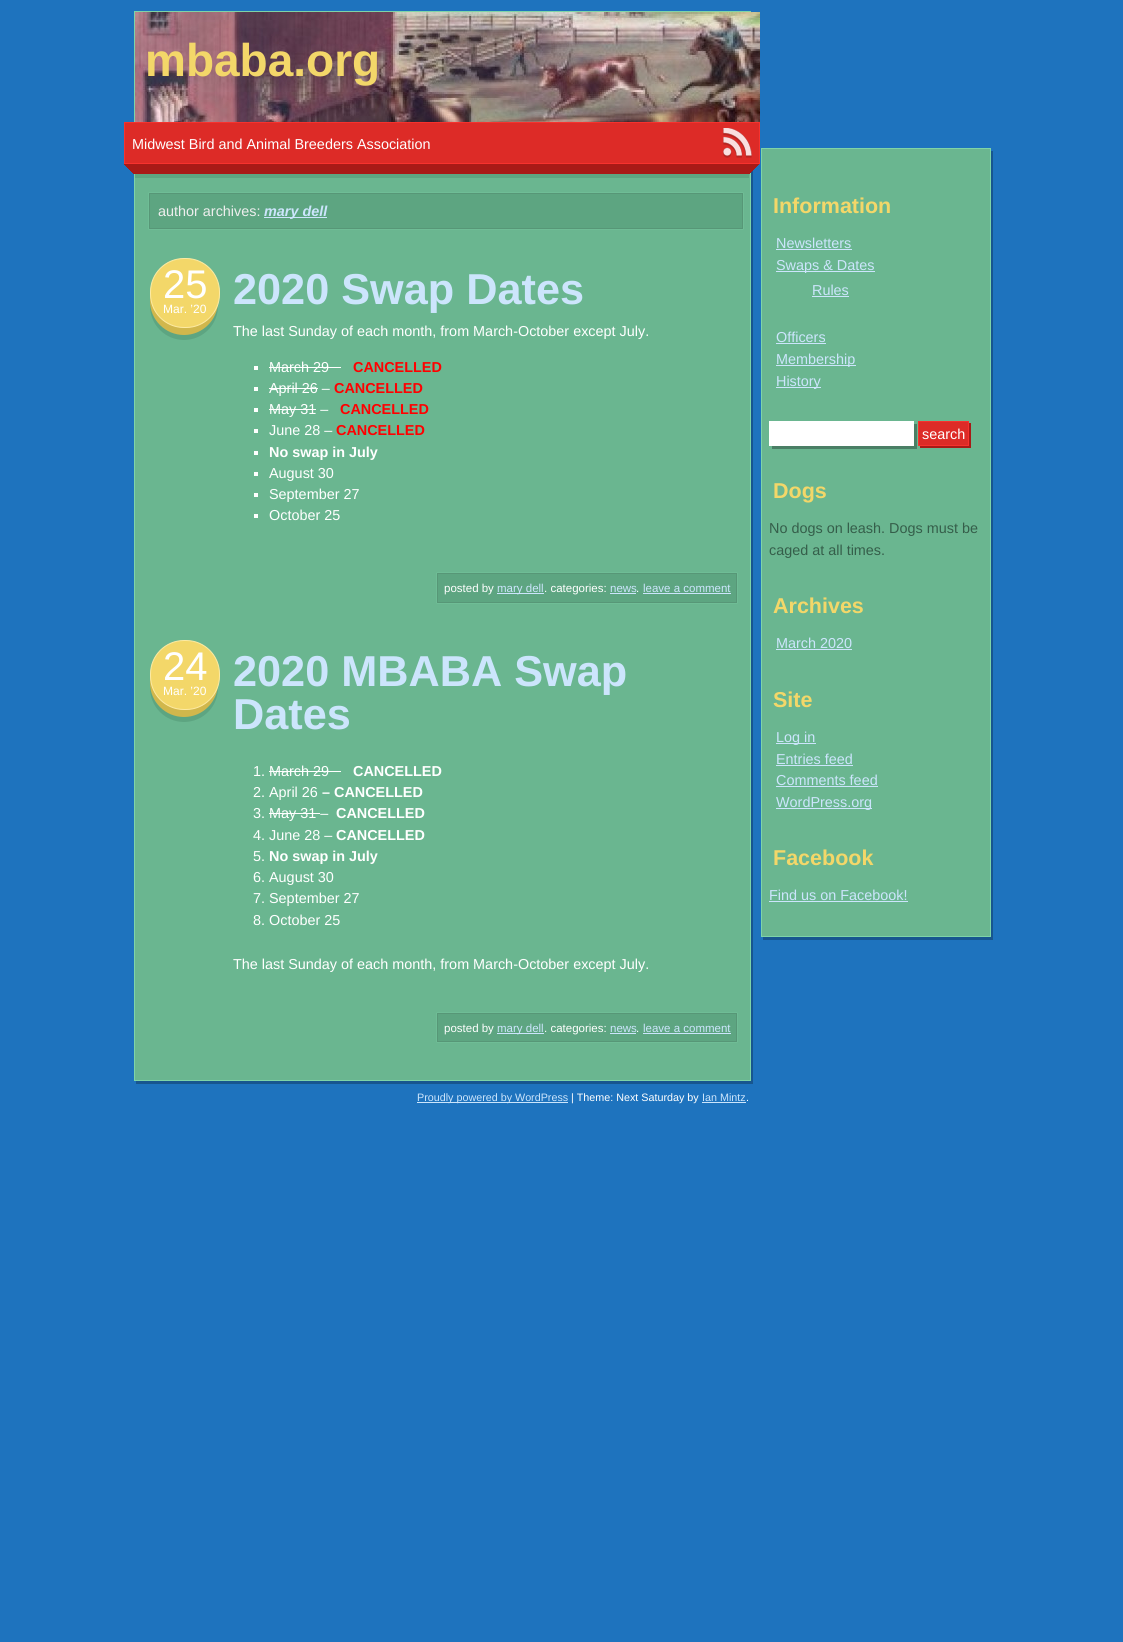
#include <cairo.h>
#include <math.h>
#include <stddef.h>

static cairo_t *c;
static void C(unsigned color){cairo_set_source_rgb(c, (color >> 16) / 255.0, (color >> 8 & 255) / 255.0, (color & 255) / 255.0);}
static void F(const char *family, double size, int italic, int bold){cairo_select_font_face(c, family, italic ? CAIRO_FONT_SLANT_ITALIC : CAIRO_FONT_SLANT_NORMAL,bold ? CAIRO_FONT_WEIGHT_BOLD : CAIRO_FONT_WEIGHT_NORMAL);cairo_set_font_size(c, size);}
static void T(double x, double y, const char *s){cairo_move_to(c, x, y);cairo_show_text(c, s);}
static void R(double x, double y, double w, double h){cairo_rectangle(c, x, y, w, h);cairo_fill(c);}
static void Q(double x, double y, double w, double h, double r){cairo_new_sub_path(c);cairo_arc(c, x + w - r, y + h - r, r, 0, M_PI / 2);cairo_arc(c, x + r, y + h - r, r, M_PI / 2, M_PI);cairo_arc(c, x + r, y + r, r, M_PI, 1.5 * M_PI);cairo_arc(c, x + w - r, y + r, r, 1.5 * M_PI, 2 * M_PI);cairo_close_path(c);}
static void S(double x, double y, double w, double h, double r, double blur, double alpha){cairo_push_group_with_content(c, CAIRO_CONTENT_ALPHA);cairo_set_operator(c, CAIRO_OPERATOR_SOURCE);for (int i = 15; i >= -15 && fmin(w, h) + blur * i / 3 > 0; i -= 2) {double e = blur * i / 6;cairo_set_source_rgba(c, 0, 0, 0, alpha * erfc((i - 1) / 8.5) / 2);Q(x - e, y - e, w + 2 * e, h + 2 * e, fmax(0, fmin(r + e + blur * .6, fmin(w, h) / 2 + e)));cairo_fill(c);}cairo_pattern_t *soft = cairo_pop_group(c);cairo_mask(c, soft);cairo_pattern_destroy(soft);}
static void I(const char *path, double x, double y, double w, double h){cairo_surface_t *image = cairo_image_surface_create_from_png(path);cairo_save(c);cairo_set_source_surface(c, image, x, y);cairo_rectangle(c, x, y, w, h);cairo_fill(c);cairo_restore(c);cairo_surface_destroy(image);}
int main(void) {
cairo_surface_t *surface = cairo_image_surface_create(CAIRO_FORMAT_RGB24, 1123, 1642);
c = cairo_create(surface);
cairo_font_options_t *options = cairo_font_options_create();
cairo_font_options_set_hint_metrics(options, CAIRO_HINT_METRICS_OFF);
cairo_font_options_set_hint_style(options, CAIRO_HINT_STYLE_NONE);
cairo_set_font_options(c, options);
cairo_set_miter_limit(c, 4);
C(0x1e73be);
cairo_paint(c);
C(0x17568f);
cairo_new_path(c);
cairo_move_to(c,136,1081);
cairo_line_to(c,136,1084);
cairo_line_to(c,753,1084);
cairo_line_to(c,753,14);
cairo_line_to(c,751,14);
cairo_line_to(c,751,1081);
cairo_close_path(c);
cairo_fill(c);
C(0x6ab690);
R(135,178,615,902);
cairo_rectangle(c,134.5,11.5,616,1069);
C(0x7ed4a8);
cairo_set_line_width(c,1);
cairo_stroke(c);
I("1.png",135,12,625,110);
F("Liberation Sans",46,0,1);
C(0xf3d769);
T(145,76,"mbaba.org");
C(0xdd2b27);
cairo_rectangle(c,124.5,122.5,635,41);
cairo_fill_preserve(c);
C(0xf7322e);
cairo_stroke(c);
F("Liberation Sans",14.4,0,0);
C(0xffffff);
T(132,149,"Midwest Bird and Animal Breeders Association");
I("2.png",723,128,29,30);
I("3.png",124,164,635,14);
C(0x7ed4a8);
S(149,193,594,36,0,.5,1);
C(0x5da581);
cairo_rectangle(c,149.5,193.5,593,35);
cairo_fill_preserve(c);
C(0x579777);
cairo_stroke(c);
C(0xeeeeee);
T(158,216,"author archives:");
C(0xcce5fc);
R(264,217,63,1);
F("Liberation Sans",14.4,1,1);
T(264,216,"mary dell");
C(0x5da581);
cairo_new_path(c);
cairo_arc(c,184,306,34,0,2 * M_PI);
cairo_fill(c);
C(0xd1b74c);
cairo_arc(c,184,301,34,0,2 * M_PI);
cairo_fill(c);
C(0xf3d769);
Q(150.5,258.5,69,69,33.5);
cairo_fill_preserve(c);
C(0xfdeaa2);
cairo_stroke(c);
F("Liberation Sans",40,0,0);
C(0xffffff);
T(163,298,"25");
F("Liberation Sans",12,0,0);
T(163,313,"Mar. ’20");
F("Liberation Sans",43.25,0,1);
C(0xcce5fc);
T(233,304,"2020 Swap Dates");
F("Liberation Sans",14.4,0,0);
C(0xffffff);
T(233,336,"The last Sunday of each month, from March-October except July.");
R(254,366,4,4);
T(269,372,"March 29");
R(269,367,72,1);
F("Liberation Sans",14.4,0,1);
C(0xff0000);
T(353,372,"CANCELLED");
C(0xffffff);
R(254,387,4,4);
F("Liberation Sans",14.4,0,0);
T(269,393,"April 26 –");
R(269,388,49,1);
F("Liberation Sans",14.4,0,1);
C(0xff0000);
T(334,393,"CANCELLED");
C(0xffffff);
R(254,408,4,4);
F("Liberation Sans",14.4,0,0);
T(269,414,"May 31 –");
R(269,409,47,1);
F("Liberation Sans",14.4,0,1);
C(0xff0000);
T(340,414,"CANCELLED");
C(0xffffff);
R(254,429,4,4);
F("Liberation Sans",14.4,0,0);
T(269,435,"June 28 –");
F("Liberation Sans",14.4,0,1);
C(0xff0000);
T(336,435,"CANCELLED");
C(0xffffff);
R(254,451,4,4);
T(269,457,"No swap in July");
R(254,472,4,4);
F("Liberation Sans",14.4,0,0);
T(269,478,"August 30");
R(254,493,4,4);
T(269,499,"September 27");
R(254,514,4,4);
T(269,520,"October 25");
C(0x7ed4a8);
S(437,573,300,30,0,.5,1);
C(0x5da581);
cairo_rectangle(c,437.5,573.5,299,29);
cairo_fill_preserve(c);
C(0x579777);
cairo_stroke(c);
F("Liberation Sans",11.5,0,0);
C(0xffffff);
T(444,592,"posted by");
C(0xcce5fc);
R(497,593,47,1);
T(497,592,"mary dell");
C(0xffffff);
T(544,592,". categories:");
C(0xcce5fc);
T(610,592,"news");
C(0xffffff);
T(636,592,".");
C(0xcce5fc);
R(610,593,26,1);
T(643,592,"leave a comment");
R(643,593,88,1);
C(0x5da581);
cairo_new_path(c);
cairo_arc(c,184,688,34,0,2 * M_PI);
cairo_fill(c);
C(0xd1b74c);
cairo_arc(c,184,683,34,0,2 * M_PI);
cairo_fill(c);
C(0xf3d769);
Q(150.5,640.5,69,69,33.5);
cairo_fill_preserve(c);
C(0xfdeaa2);
cairo_stroke(c);
F("Liberation Sans",40,0,0);
C(0xffffff);
T(163,680,"24");
F("Liberation Sans",12,0,0);
T(163,695,"Mar. ’20");
F("Liberation Sans",43.25,0,1);
C(0xcce5fc);
T(233,686,"2020 MBABA Swap");
T(233,729,"Dates");
F("Liberation Sans",14.4,0,0);
C(0xffffff);
T(253,776,"1. March 29");
F("Liberation Sans",14.4,0,1);
T(353,776,"CANCELLED");
R(269,771,72,1);
F("Liberation Sans",14.4,0,0);
T(253,797,"2. April 26");
F("Liberation Sans",14.4,0,1);
T(322,797,"– CANCELLED");
F("Liberation Sans",14.4,0,0);
T(253,818,"3. May 31 –");
F("Liberation Sans",14.4,0,1);
T(336,818,"CANCELLED");
R(269,813,51,1);
F("Liberation Sans",14.4,0,0);
T(253,840,"4. June 28 –");
F("Liberation Sans",14.4,0,1);
T(336,840,"CANCELLED");
F("Liberation Sans",14.4,0,0);
T(253,861,"5.");
F("Liberation Sans",14.4,0,1);
T(269,861,"No swap in July");
F("Liberation Sans",14.4,0,0);
T(253,882,"6. August 30");
T(253,903,"7. September 27");
T(253,925,"8. October 25");
T(233,969,"The last Sunday of each month, from March-October except July.");
C(0x7ed4a8);
S(437,1013,300,29,0,.5,1);
C(0x5da581);
cairo_rectangle(c,437.5,1013.5,299,28);
cairo_fill_preserve(c);
C(0x579777);
cairo_stroke(c);
F("Liberation Sans",11.5,0,0);
C(0xffffff);
T(444,1032,"posted by");
C(0xcce5fc);
R(497,1033,47,1);
T(497,1032,"mary dell");
C(0xffffff);
T(544,1032,". categories:");
C(0xcce5fc);
T(610,1032,"news");
C(0xffffff);
T(636,1032,".");
C(0xcce5fc);
R(610,1033,26,1);
T(643,1032,"leave a comment");
R(643,1033,88,1);
C(0x17568f);
cairo_new_path(c);
cairo_move_to(c,763,937);
cairo_line_to(c,763,940);
cairo_line_to(c,993,940);
cairo_line_to(c,993,151);
cairo_line_to(c,991,151);
cairo_line_to(c,991,937);
cairo_close_path(c);
cairo_fill(c);
C(0x6ab690);
cairo_rectangle(c,761.5,148.5,229,788);
cairo_fill_preserve(c);
C(0x7ed4a8);
cairo_stroke(c);
F("Liberation Sans",21.5,0,1);
C(0xf3d769);
T(773,213,"Information");
F("Liberation Sans",14.4,0,0);
C(0xcce5fc);
T(776,248,"Newsletters");
R(776,249,76,1);
R(776,271,99,1);
T(776,270,"Swaps & Dates");
T(812,295,"Rules");
R(812,296,37,1);
T(776,342,"Officers");
R(776,343,50,1);
R(776,365,80,1);
T(776,364,"Membership");
R(776,387,45,1);
T(776,386,"History");
C(0x4a7f65);
cairo_new_path(c);
cairo_move_to(c,772,446);
cairo_line_to(c,772,449);
cairo_line_to(c,917,449);
cairo_line_to(c,917,424);
cairo_line_to(c,914,424);
cairo_line_to(c,914,446);
cairo_close_path(c);
cairo_fill(c);
C(0xffffff);
R(769,421,145,25);
C(0xa81a17);
cairo_new_path(c);
cairo_move_to(c,920,446);
cairo_line_to(c,920,448);
cairo_line_to(c,971,448);
cairo_line_to(c,971,423);
cairo_line_to(c,969,423);
cairo_line_to(c,969,446);
cairo_close_path(c);
cairo_fill(c);
C(0xdd2b27);
cairo_rectangle(c,918.5,421.5,50,24);
cairo_fill_preserve(c);
C(0xf7322e);
cairo_stroke(c);
C(0xffffff);
T(922,439,"search");
F("Liberation Sans",21.5,0,1);
C(0xf3d769);
T(773,498,"Dogs");
F("Liberation Sans",14.4,0,0);
C(0x355e4a);
T(769,533,"No dogs on leash. Dogs must be");
T(769,555,"caged at all times.");
F("Liberation Sans",21.5,0,1);
C(0xf3d769);
T(773,613,"Archives");
F("Liberation Sans",14.4,0,0);
C(0xcce5fc);
T(776,648,"March 2020");
R(776,649,76,1);
F("Liberation Sans",21.5,0,1);
C(0xf3d769);
T(773,707,"Site");
C(0xcce5fc);
R(776,743,40,1);
F("Liberation Sans",14.4,0,0);
T(776,742,"Log in");
T(776,764,"Entries feed");
R(776,765,77,1);
T(776,785,"Comments feed");
R(776,786,102,1);
R(776,808,96,1);
T(776,807,"WordPress.org");
F("Liberation Sans",21.5,0,1);
C(0xf3d769);
T(773,865,"Facebook");
F("Liberation Sans",14.4,0,0);
C(0xcce5fc);
T(769,900,"Find us on Facebook!");
R(769,901,139,1);
R(417,1102,151,1);
F("Liberation Sans",10.75,0,0);
T(417,1101,"Proudly powered by WordPress");
C(0xffffff);
T(571,1101,"| Theme: Next Saturday by");
C(0xcce5fc);
T(702,1101,"Ian Mintz");
R(702,1102,44,1);
C(0xffffff);
T(746,1101,".");
cairo_surface_write_to_png(surface, "o.png");
cairo_font_options_destroy(options);
cairo_destroy(c);
cairo_surface_destroy(surface);
return 0;
}
